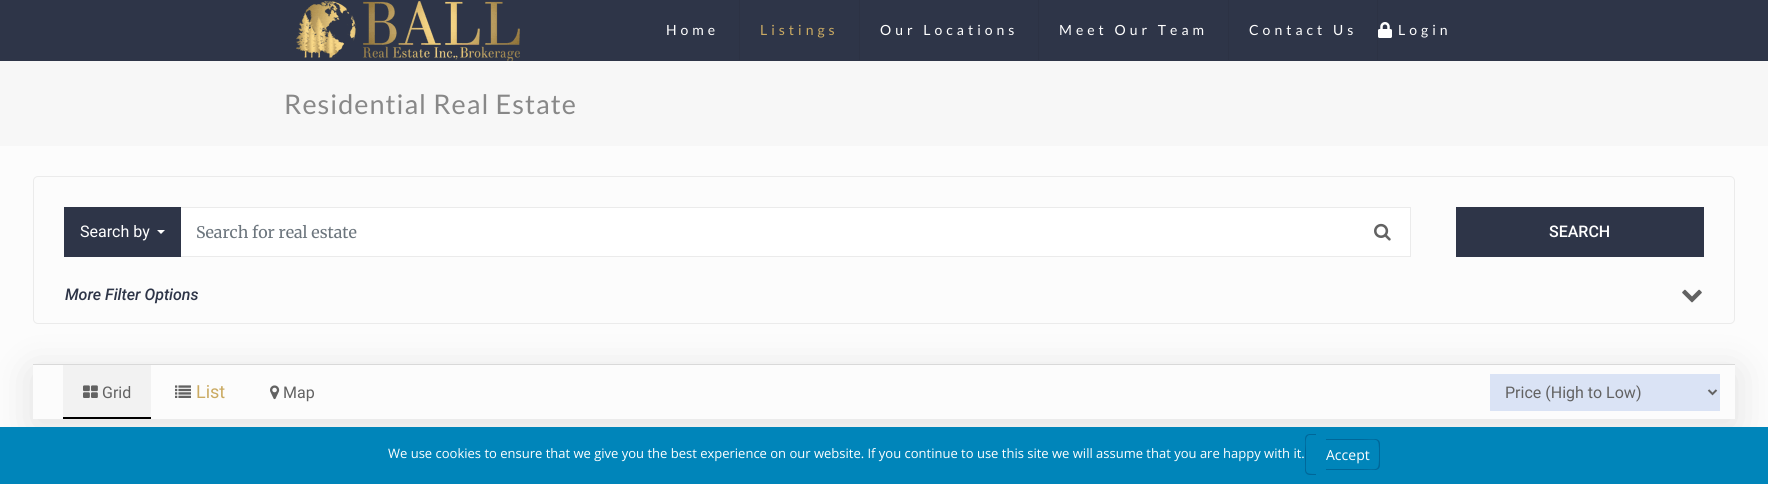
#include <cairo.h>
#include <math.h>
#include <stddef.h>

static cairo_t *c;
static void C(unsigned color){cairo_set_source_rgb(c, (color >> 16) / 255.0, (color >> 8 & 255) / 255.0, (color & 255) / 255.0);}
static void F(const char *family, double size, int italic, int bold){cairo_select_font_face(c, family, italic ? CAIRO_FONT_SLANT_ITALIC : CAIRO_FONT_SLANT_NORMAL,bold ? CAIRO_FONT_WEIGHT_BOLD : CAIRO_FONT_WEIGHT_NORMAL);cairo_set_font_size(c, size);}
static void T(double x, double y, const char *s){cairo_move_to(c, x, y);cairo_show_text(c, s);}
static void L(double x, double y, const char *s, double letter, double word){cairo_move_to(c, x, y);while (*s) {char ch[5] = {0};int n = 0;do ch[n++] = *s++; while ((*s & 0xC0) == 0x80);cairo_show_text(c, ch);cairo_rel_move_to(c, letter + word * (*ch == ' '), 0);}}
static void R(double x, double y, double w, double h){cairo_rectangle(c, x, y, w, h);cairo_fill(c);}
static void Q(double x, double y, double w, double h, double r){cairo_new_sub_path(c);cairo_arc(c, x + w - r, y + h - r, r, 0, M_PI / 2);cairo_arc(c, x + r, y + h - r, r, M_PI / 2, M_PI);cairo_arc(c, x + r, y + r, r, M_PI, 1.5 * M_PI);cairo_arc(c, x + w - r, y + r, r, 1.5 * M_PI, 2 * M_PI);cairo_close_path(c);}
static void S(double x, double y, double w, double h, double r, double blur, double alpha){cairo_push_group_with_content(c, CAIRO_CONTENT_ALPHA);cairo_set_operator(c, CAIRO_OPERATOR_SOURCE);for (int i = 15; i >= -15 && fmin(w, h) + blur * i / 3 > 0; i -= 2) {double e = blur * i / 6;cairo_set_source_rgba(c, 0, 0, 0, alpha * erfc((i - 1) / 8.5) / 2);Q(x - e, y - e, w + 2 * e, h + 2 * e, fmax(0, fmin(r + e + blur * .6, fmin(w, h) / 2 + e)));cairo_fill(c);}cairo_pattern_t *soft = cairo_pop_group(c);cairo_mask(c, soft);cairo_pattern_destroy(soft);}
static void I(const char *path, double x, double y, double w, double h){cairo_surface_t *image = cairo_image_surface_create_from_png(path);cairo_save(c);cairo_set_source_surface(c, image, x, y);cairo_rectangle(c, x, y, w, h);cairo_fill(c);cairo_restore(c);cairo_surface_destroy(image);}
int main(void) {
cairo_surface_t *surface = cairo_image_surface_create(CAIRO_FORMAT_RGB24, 1768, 484);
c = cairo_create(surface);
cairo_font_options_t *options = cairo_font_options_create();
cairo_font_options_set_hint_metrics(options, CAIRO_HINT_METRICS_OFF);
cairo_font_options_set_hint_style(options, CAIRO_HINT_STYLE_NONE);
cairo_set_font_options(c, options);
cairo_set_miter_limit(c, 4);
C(0xfcfcfc);
cairo_paint(c);
C(0x2e3548);
R(0,0,1768,61);
I("1.png",296,1,224,60);
C(0x2c3244);
R(739,0,1,60);
F("Lato",14,0,0);
C(0xffffff);
L(666,35,"Home",4,0);
C(0x2c3244);
R(859,0,1,60);
C(0xcaaa62);
L(760,35,"Listings",4,0);
C(0x2c3244);
R(1038,0,1,60);
C(0xffffff);
L(880,35,"Our Locations",4,0);
C(0x2c3244);
R(1228,0,1,60);
C(0xffffff);
L(1059,35,"Meet Our Team",4,0);
C(0x2c3244);
R(1377,0,1,60);
C(0xffffff);
L(1249,35,"Contact Us",4,0);
I("2.png",1378,22,14,16);
L(1398,35,"Login",4,0);
C(0xf7f7f7);
R(0,61,1768,85);
F("Lato",27,0,0);
C(0x888888);
L(284,114,"Residential Real Estate",1,0);
cairo_save(c);
cairo_set_fill_rule(c,CAIRO_FILL_RULE_EVEN_ODD);
cairo_new_path(c);
cairo_move_to(c,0,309);
cairo_line_to(c,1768,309);
cairo_line_to(c,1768,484);
cairo_line_to(c,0,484);
cairo_close_path(c);
cairo_move_to(c,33,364);
cairo_line_to(c,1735,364);
cairo_line_to(c,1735,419);
cairo_line_to(c,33,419);
cairo_close_path(c);
cairo_clip(c);
C(0x000000);
S(33,372,1702,55,0,20.5,.11);
cairo_restore(c);
Q(33.5,176.5,1701,147,4.5);
C(0xebebeb);
cairo_set_line_width(c,1);
cairo_stroke(c);
C(0xffffff);
cairo_rectangle(c,180.5,207.5,1230,49);
cairo_fill_preserve(c);
C(0xebebeb);
cairo_stroke(c);
C(0x2e3548);
R(64,207,117,50);
F("Roboto",16,0,0);
C(0xffffff);
T(80,237,"Search by");
cairo_new_path(c);
cairo_move_to(c,157,230);
cairo_line_to(c,165,230);
cairo_line_to(c,161,234);
cairo_close_path(c);
cairo_fill(c);
F("Merriweather",16,0,0);
C(0x6c757d);
T(196,238,"Search for real estate");
I("3.png",1374,223,17,18);
C(0x2e3548);
R(1456,207,248,50);
F("Roboto Medium",16,0,0);
C(0xffffff);
T(1549,237,"SEARCH");
F("Roboto Medium",16,1,0);
C(0x2e3548);
T(65,300,"More Filter Options");
I("4.png",1682,289,20,14);
C(0xd9d9d9);
R(33,364,1702,1);
C(0xf2f2f2);
R(63,365,88,52);
C(0x000000);
R(63,417,88,2);
I("5.png",83,385,15,13);
F("Roboto",16,0,0);
C(0x626262);
T(102,398,"Grid");
I("6.png",175,385,16,13);
F("Roboto",18,0,0);
C(0xcaaa62);
T(196,398,"List");
I("7.png",270,385,10,15);
F("Roboto",16,0,0);
C(0x626262);
T(283,398,"Map");
C(0xdae3f5);
R(1490,374,230,37);
cairo_new_path(c);
cairo_move_to(c,1708.5,390);
cairo_line_to(c,1712.5,394);
cairo_line_to(c,1716.5,390);
C(0x626262);
cairo_set_line_width(c,2);
cairo_stroke(c);
T(1505,398,"Price (High to Low)");
C(0x0085ba);
R(0,427,1768,57);
F("Open Sans",13,0,0);
C(0xffffff);
T(388,458,"We use cookies to ensure that we give you the best experience on our website. If you continue to use this site we will assume that you are happy with it.");
C(0x006799);
cairo_set_fill_rule(c,CAIRO_FILL_RULE_EVEN_ODD);
cairo_new_path(c);
cairo_move_to(c,1326,439);
cairo_line_to(c,1375,439);
cairo_curve_to(c,1378,439,1380,441,1380,444);
cairo_line_to(c,1380,465);
cairo_curve_to(c,1380,468,1378,470,1375,470);
cairo_line_to(c,1326,470);
cairo_close_path(c);
cairo_move_to(c,1326,440);
cairo_line_to(c,1359,440);
cairo_curve_to(c,1379,440,1379,436,1379,454);
cairo_curve_to(c,1379,473,1379,469,1359,469);
cairo_line_to(c,1326,469);
cairo_close_path(c);
cairo_fill(c);
F("Open Sans",14,0,0);
C(0xffffff);
T(1326,460,"Accept");
C(0x006799);
cairo_new_path(c);
cairo_move_to(c,1310,434);
cairo_line_to(c,1316,434);
cairo_line_to(c,1316,475);
cairo_line_to(c,1310,475);
cairo_curve_to(c,1307,475,1305,473,1305,470);
cairo_line_to(c,1305,439);
cairo_curve_to(c,1305,436,1307,434,1310,434);
cairo_close_path(c);
cairo_move_to(c,1310,435);
cairo_line_to(c,1316,435);
cairo_line_to(c,1316,474);
cairo_curve_to(c,1304,474,1306,473,1306,460);
cairo_line_to(c,1306,449);
cairo_curve_to(c,1306,446,1304,435,1310,435);
cairo_close_path(c);
cairo_fill(c);
cairo_surface_write_to_png(surface, "o.png");
cairo_font_options_destroy(options);
cairo_destroy(c);
cairo_surface_destroy(surface);
return 0;
}
